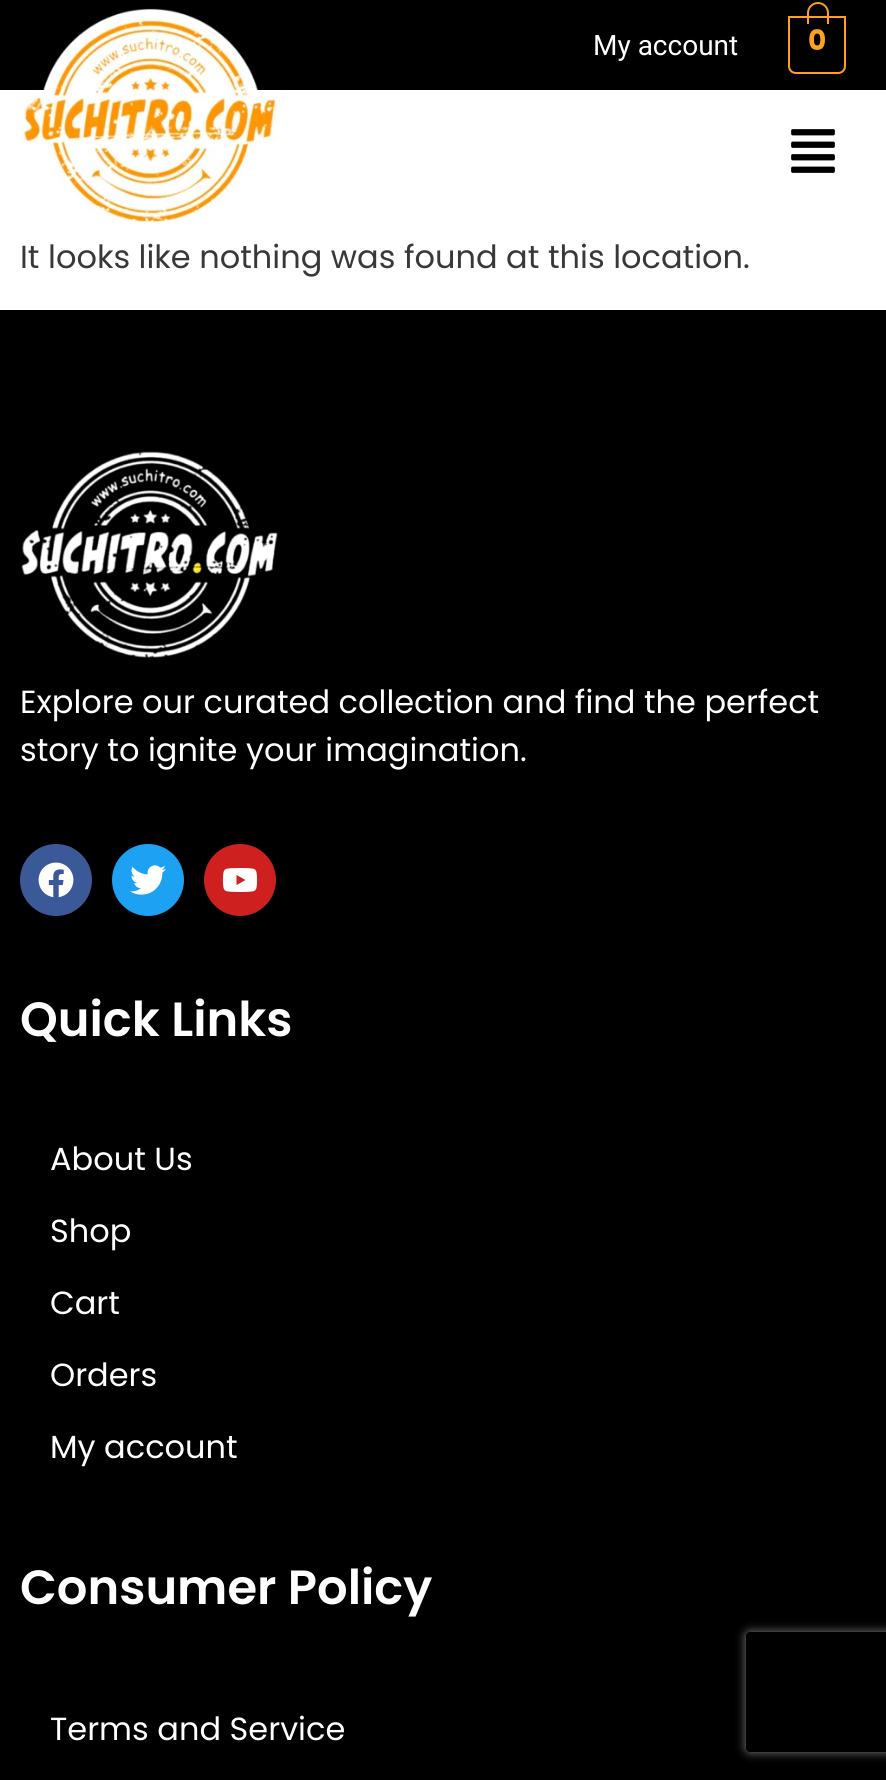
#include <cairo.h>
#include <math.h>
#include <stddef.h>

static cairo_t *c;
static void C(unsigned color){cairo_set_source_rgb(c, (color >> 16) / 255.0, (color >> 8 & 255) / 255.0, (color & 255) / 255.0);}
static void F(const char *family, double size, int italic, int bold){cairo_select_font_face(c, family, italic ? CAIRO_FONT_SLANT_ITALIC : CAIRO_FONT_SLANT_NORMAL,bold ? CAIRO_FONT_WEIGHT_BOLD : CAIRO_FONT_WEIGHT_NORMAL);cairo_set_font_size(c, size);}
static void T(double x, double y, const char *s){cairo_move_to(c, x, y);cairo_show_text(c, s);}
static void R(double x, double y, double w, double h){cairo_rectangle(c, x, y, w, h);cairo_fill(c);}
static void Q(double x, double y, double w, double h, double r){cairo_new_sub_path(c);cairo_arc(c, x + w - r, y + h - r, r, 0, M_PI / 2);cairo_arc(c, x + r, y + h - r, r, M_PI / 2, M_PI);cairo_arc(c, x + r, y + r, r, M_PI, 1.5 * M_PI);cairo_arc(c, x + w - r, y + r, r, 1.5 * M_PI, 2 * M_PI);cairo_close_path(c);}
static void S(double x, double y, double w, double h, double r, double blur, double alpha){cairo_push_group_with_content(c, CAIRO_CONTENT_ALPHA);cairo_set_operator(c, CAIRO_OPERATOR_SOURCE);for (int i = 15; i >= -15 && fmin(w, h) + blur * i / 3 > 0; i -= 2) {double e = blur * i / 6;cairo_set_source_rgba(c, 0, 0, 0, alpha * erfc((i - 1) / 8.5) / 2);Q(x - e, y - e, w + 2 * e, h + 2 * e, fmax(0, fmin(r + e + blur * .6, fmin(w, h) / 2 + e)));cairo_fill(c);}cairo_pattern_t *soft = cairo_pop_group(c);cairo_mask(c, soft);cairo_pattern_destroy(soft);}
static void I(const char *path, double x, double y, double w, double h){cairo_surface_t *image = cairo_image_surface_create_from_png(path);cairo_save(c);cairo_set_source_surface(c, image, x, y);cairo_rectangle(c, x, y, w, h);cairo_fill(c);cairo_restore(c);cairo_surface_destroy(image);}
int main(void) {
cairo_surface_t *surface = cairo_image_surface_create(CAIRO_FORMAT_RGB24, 886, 1780);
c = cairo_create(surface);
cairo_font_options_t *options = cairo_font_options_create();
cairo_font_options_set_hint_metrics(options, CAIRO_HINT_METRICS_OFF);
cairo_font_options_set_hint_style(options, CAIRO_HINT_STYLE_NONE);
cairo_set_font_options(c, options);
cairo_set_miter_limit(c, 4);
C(0xffffff);
cairo_paint(c);
C(0x000000);
R(0,0,886,90);
I("1.png",22,8,255,216);
I("2.png",791,129,44,44);
F("Roboto",28,0,0);
C(0xffffff);
T(593,55,"My account");
cairo_new_path(c);
cairo_move_to(c,789,17);
cairo_line_to(c,845,17);
cairo_line_to(c,845,66);
cairo_curve_to(c,845,70,842,73,838,73);
cairo_line_to(c,796,73);
cairo_curve_to(c,792,73,789,70,789,66);
cairo_close_path(c);
C(0xffa11d);
cairo_stroke(c);
cairo_set_fill_rule(c,CAIRO_FILL_RULE_EVEN_ODD);
cairo_new_path(c);
cairo_move_to(c,818,2);
cairo_curve_to(c,824,2,829,7,829,13);
cairo_line_to(c,829,24);
cairo_line_to(c,807,24);
cairo_line_to(c,807,13);
cairo_curve_to(c,807,7,812,2,818,2);
cairo_close_path(c);
cairo_move_to(c,818,4);
cairo_curve_to(c,823,4,827,8,827,13);
cairo_line_to(c,827,24);
cairo_line_to(c,809,24);
cairo_line_to(c,809,13);
cairo_curve_to(c,809,8,813,4,818,4);
cairo_close_path(c);
cairo_fill(c);
F("Poppins",28,0,1);
T(808,50,"0");
F("Poppins",32,0,0);
C(0x383838);
T(20,268,"It looks like nothing was found at this location.");
C(0x000000);
R(0,310,886,1470);
I("3.png",21,451,257,207);
C(0xffffff);
T(20,713,"Explore our curated collection and find the perfect");
T(20,761,"story to ignite your imagination.");
C(0x3b5998);
cairo_new_path(c);
cairo_arc(c,56,880,36,0,2 * M_PI);
cairo_fill(c);
I("4.png",38,862,36,36);
C(0x1da1f2);
cairo_arc(c,148,880,36,0,2 * M_PI);
cairo_fill(c);
I("5.png",130,865,36,30);
C(0xcd201f);
cairo_arc(c,240,880,36,0,2 * M_PI);
cairo_fill(c);
I("6.png",222,868,36,24);
F("Poppins SemiBold",48,0,0);
C(0xffffff);
T(20,1036,"Quick Links");
F("Poppins",32,0,0);
T(50,1170,"About Us");
T(50,1242,"Shop");
T(50,1314,"Cart");
T(50,1386,"Orders");
T(50,1458,"My account");
F("Poppins SemiBold",48,0,0);
T(20,1604,"Consumer Policy");
F("Poppins",32,0,0);
T(50,1740,"Terms and Service");
cairo_save(c);
cairo_new_path(c);
cairo_move_to(c,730,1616);
cairo_line_to(c,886,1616);
cairo_line_to(c,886,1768);
cairo_line_to(c,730,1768);
cairo_close_path(c);
cairo_move_to(c,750,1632);
cairo_line_to(c,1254,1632);
cairo_curve_to(c,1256,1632,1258,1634,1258,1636);
cairo_line_to(c,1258,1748);
cairo_curve_to(c,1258,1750,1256,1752,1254,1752);
cairo_line_to(c,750,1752);
cairo_curve_to(c,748,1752,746,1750,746,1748);
cairo_line_to(c,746,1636);
cairo_curve_to(c,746,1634,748,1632,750,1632);
cairo_close_path(c);
cairo_clip(c);
C(0x808080);
S(746,1632,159,120,4,5,1);
cairo_restore(c);
cairo_surface_write_to_png(surface, "o.png");
cairo_font_options_destroy(options);
cairo_destroy(c);
cairo_surface_destroy(surface);
return 0;
}
